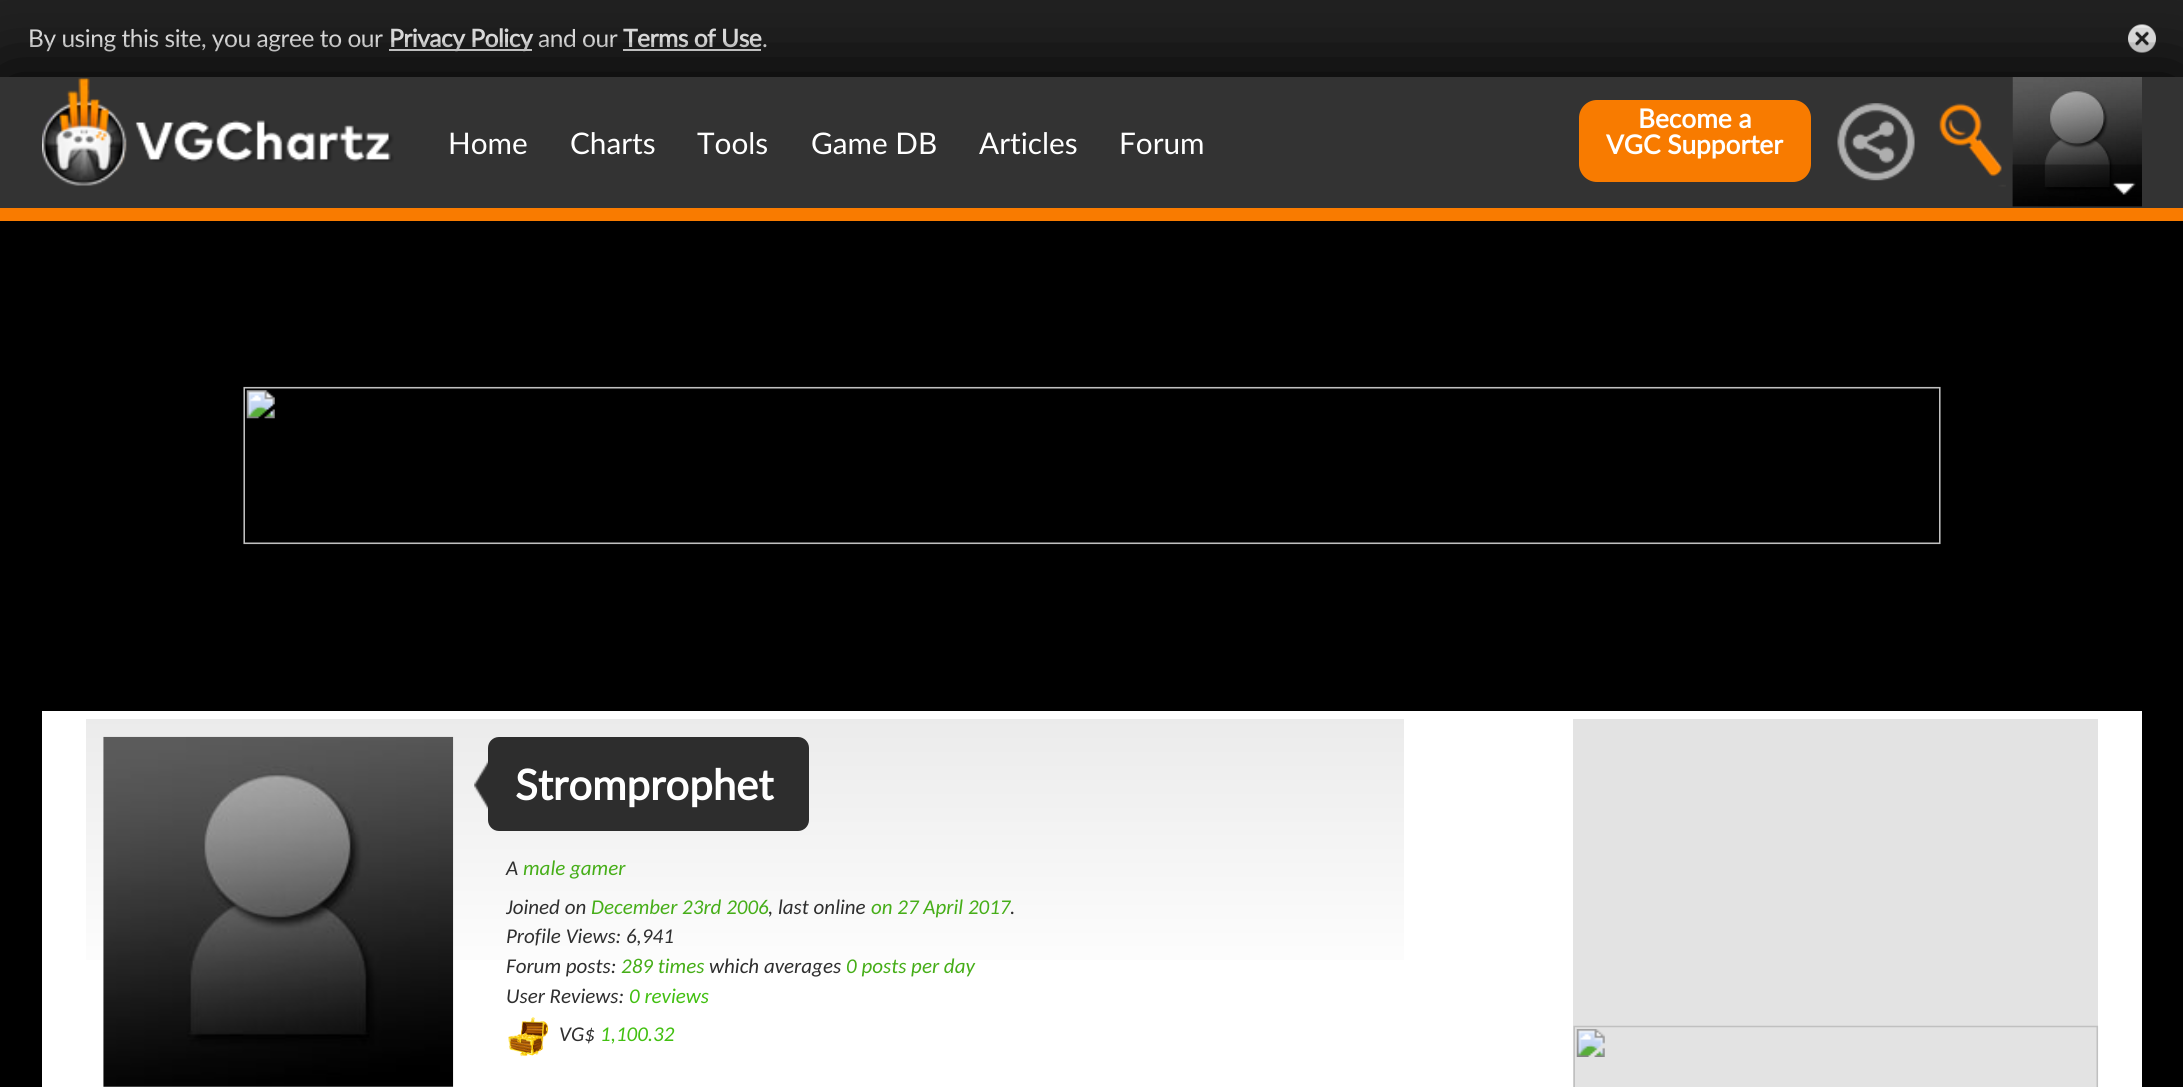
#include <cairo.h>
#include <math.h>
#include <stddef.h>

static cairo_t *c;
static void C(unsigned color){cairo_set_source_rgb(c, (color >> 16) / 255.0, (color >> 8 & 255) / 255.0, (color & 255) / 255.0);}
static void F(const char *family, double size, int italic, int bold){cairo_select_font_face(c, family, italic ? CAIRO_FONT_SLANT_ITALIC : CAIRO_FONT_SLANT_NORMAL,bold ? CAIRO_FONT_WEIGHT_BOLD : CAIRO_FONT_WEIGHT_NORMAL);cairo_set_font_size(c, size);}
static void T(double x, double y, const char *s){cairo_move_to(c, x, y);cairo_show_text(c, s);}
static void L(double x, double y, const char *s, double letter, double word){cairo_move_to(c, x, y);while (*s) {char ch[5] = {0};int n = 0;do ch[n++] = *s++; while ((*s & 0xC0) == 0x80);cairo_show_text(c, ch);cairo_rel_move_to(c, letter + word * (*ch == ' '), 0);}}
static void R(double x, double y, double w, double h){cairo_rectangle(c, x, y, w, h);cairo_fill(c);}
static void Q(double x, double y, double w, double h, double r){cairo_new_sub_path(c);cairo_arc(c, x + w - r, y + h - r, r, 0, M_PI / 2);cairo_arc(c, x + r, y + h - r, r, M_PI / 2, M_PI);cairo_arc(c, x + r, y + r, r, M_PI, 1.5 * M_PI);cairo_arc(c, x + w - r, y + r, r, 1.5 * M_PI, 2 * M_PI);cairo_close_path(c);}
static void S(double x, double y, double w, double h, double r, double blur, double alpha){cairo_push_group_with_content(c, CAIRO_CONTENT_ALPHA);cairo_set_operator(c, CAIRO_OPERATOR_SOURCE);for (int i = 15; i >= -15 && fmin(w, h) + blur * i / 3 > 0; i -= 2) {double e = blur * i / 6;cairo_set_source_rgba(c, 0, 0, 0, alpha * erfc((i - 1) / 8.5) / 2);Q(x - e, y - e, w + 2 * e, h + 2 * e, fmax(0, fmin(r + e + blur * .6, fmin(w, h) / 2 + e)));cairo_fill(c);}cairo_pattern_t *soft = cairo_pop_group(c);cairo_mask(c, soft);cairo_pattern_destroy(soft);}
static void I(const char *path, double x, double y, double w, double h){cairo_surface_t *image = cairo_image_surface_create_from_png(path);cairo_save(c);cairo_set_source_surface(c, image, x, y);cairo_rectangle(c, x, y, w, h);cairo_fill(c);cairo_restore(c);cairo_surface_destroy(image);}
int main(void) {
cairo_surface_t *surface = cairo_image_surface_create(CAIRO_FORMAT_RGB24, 2183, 1087);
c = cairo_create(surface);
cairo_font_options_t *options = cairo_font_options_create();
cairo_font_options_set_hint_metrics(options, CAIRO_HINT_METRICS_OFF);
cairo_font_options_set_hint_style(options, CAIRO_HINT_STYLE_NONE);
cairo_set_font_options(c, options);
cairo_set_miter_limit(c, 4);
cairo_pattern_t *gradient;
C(0x000000);
cairo_paint(c);
C(0x222222);
R(0,0,2183,77);
F("Lato",24.5,0,0);
C(0xffffff);
L(28,47,"By using this site, you agree to our",-.45,0);
R(389,49,143,2);
F("Lato",24.5,0,1);
L(389,47,"Privacy Policy",-.45,0);
F("Lato",24.5,0,0);
L(538,47,"and our",-.45,0);
F("Lato",24.5,0,1);
L(623,47,"Terms of Use",-.45,0);
F("Lato",24.5,0,0);
L(762,47,".",-.45,0);
R(623,49,138,2);
I("1.png",2128,24,28,29);
C(0x000000);
S(0,79,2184,143,0,44,1);
C(0x333333);
R(0,77,2183,131);
I("2.png",42,78,352,108);
F("Lato",29.75,0,0);
C(0xffffff);
T(448,154,"Home");
T(570,154,"Charts");
T(697,154,"Tools");
T(811,154,"Game DB");
T(979,154,"Articles");
T(1119,154,"Forum");
C(0xf87b00);
Q(1580,101,230,80,17);
cairo_fill_preserve(c);
cairo_stroke(c);
F("Lato",26.25,0,1);
C(0xffffff);
T(1638,128,"Become a");
T(1606,154,"VGC Supporter");
I("3.png",1837,103,78,78);
I("4.png",1939,103,67,84);
I("5.png",2012,77,130,130);
I("6.png",2012,164,130,43);
C(0xf97b00);
R(0,208,2183,13);
I("7.png",243,386,1698,159);
C(0xffffff);
R(42,711,2100,376);
gradient = cairo_pattern_create_linear(86,719,86,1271);
cairo_pattern_add_color_stop_rgba(gradient,0,0.922,0.922,0.922,1);
cairo_pattern_add_color_stop_rgba(gradient,.5,1,1,1,1);
cairo_pattern_add_color_stop_rgba(gradient,1,1,1,1,1);
cairo_set_source(c,gradient);
cairo_pattern_destroy(gradient);
R(86,719,1318,241);
I("8.png",103,736,351,351);
C(0x2d2d2d);
Q(488,737,321,94,11);
cairo_fill(c);
I("9.png",474,761,14,48);
F("Lato",42,0,1);
C(0xffffff);
T(515,800,"Stromprophet");
F("Carlito",21,1,0);
C(0x2f2f2f);
T(506,875,"A");
C(0x46ae18);
T(523,875,"male gamer");
C(0x2f2f2f);
T(506,914,"Joined on");
C(0x46ae18);
T(591,914,"December 23rd 2006");
C(0x2f2f2f);
T(768,914,", last online");
C(0x46ae18);
T(871,914,"on 27 April 2017");
C(0x2f2f2f);
T(1010,914,".");
T(506,943,"Profile Views: 6,941");
T(506,973,"Forum posts:");
C(0x46ae18);
T(621,973,"289 times");
C(0x2f2f2f);
T(709,973,"which averages");
C(0x46ae18);
T(846,973,"0 posts per day");
C(0x2f2f2f);
T(506,1003,"User Reviews:");
C(0x42c011);
T(629,1003,"0 reviews");
I("10.png",508,1017,41,40);
C(0x2f2f2f);
T(559,1041,"VG$");
C(0x42c011);
T(600,1041,"1,100.32");
C(0xe3e3e3);
R(1573,719,525,368);
I("11.png",1573,1025,526,62);
cairo_surface_write_to_png(surface, "o.png");
cairo_font_options_destroy(options);
cairo_destroy(c);
cairo_surface_destroy(surface);
return 0;
}
